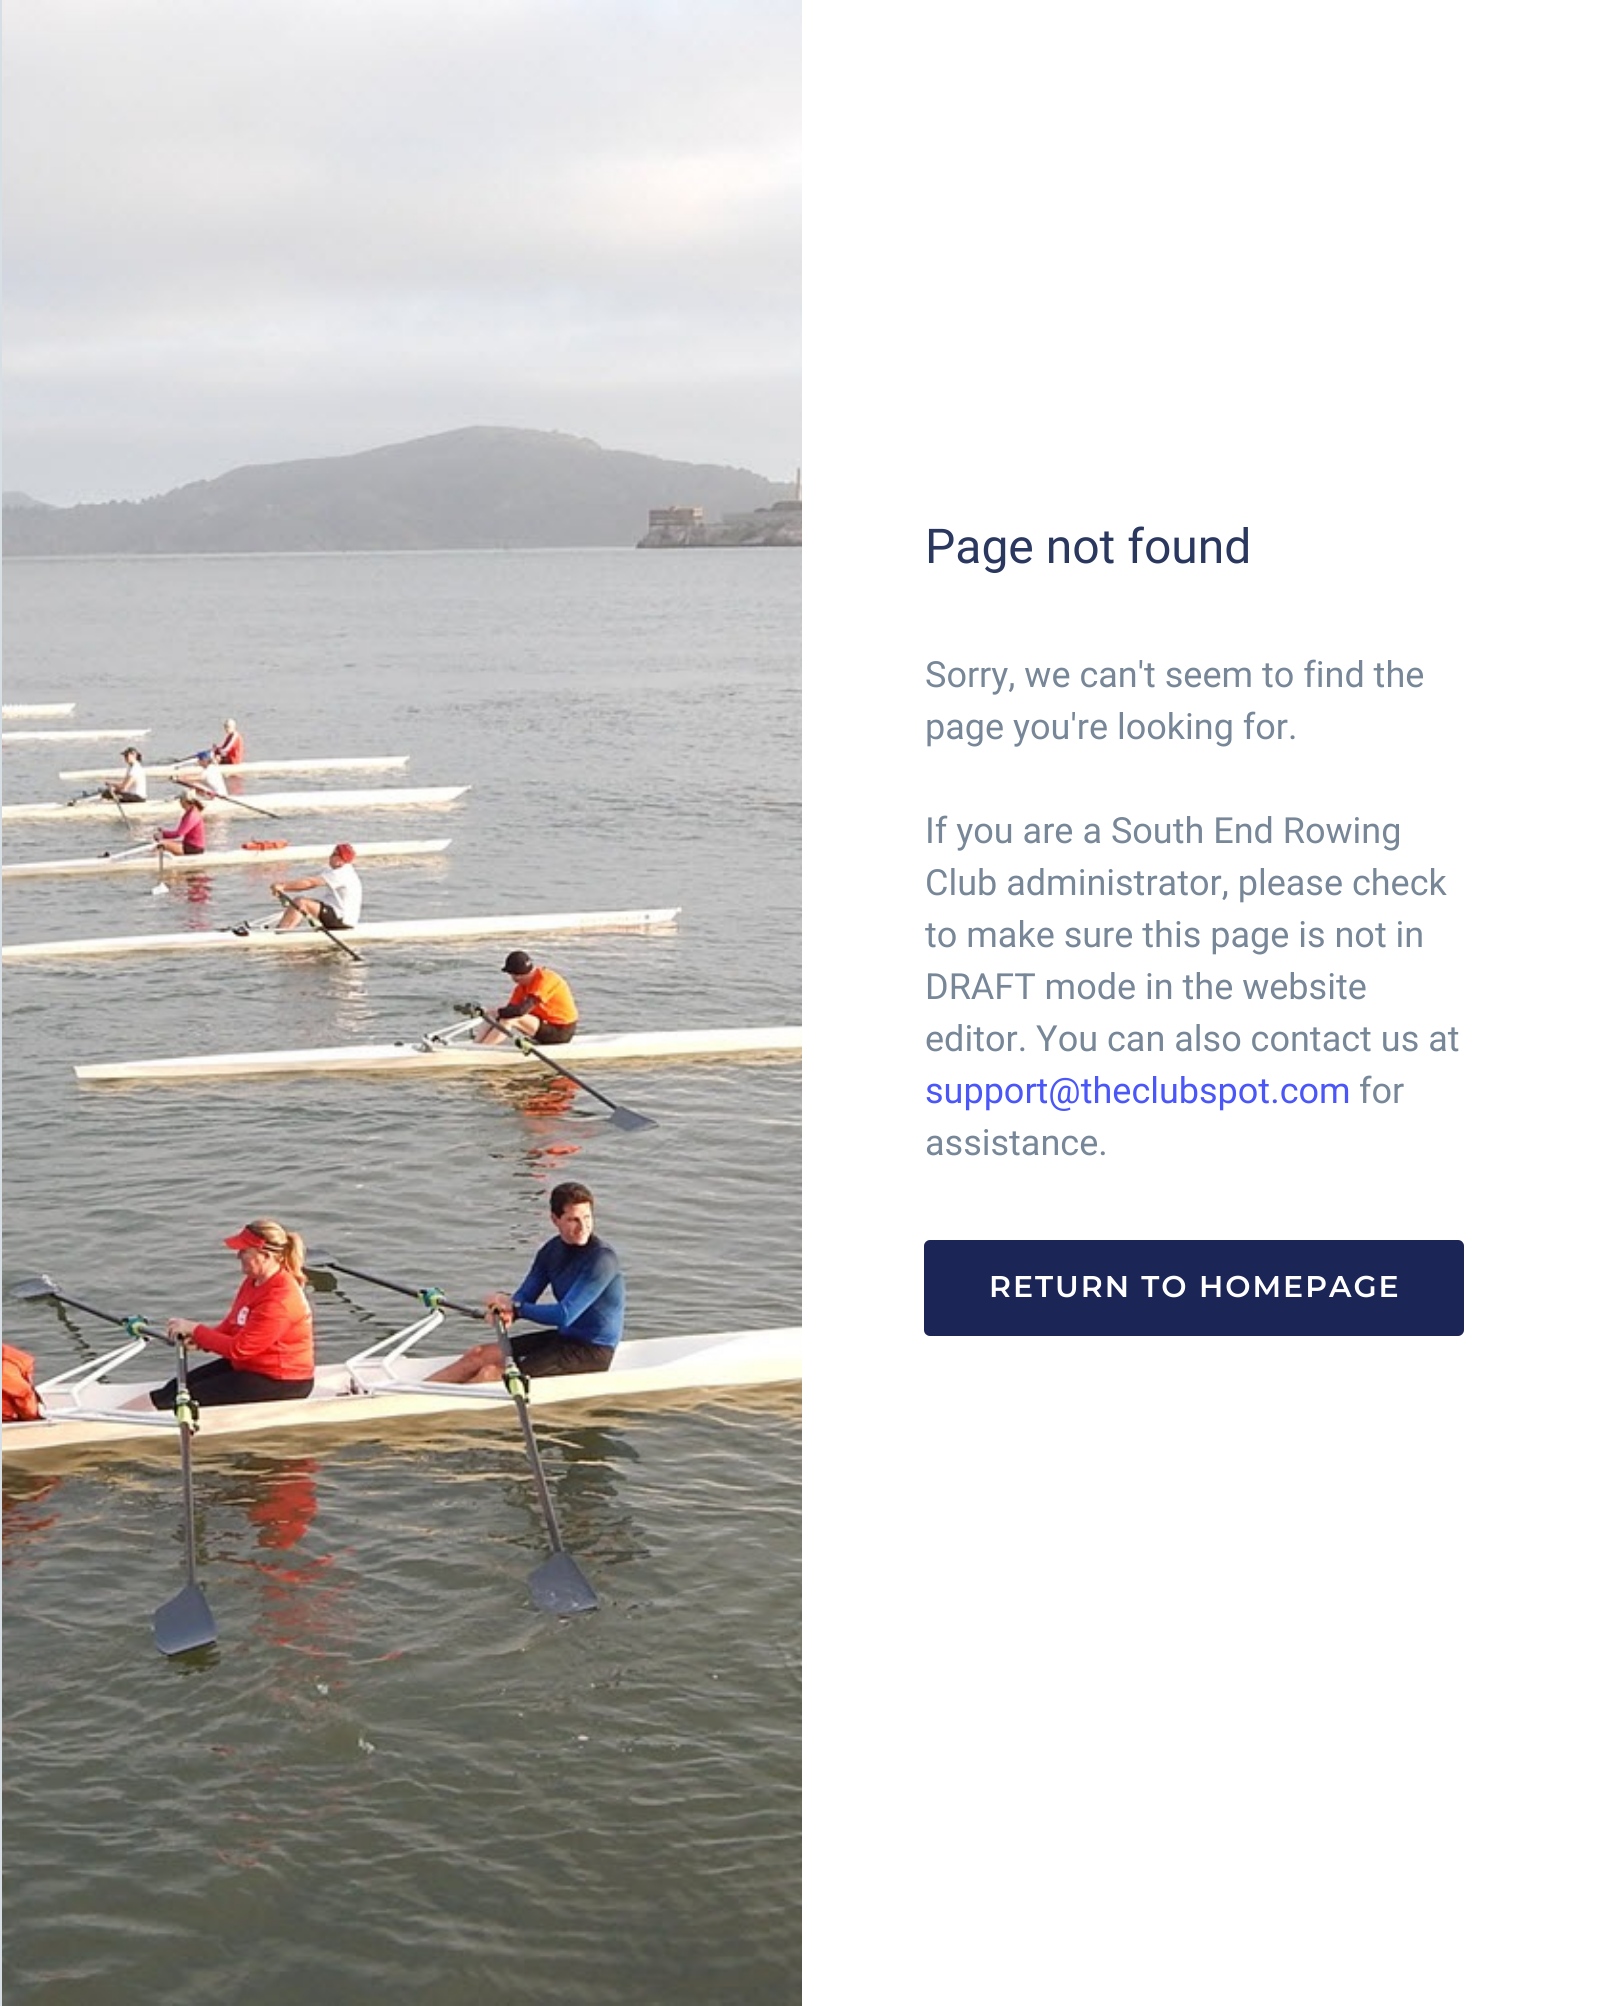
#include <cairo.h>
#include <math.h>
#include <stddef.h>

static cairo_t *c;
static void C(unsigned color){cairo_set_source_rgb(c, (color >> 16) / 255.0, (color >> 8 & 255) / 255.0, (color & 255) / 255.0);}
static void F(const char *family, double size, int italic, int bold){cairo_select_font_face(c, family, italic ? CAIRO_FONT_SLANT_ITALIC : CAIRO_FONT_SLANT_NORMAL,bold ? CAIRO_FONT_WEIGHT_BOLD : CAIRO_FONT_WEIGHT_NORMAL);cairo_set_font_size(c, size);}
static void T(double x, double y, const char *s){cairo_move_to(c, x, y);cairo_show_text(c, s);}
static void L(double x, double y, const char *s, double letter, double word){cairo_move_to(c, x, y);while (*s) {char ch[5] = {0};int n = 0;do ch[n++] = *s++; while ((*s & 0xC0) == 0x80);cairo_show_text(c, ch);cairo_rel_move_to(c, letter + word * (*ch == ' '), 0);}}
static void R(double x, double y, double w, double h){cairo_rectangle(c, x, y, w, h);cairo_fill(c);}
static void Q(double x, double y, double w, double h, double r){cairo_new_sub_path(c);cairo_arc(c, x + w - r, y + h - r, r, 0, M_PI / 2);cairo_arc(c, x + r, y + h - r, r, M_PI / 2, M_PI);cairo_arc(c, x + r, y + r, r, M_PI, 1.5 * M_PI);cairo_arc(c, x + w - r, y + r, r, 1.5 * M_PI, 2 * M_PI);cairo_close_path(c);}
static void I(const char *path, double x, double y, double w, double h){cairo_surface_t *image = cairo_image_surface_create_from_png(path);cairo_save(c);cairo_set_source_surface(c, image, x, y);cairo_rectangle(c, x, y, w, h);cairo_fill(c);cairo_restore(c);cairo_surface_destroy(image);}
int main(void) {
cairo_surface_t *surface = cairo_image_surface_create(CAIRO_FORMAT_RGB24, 1600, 2006);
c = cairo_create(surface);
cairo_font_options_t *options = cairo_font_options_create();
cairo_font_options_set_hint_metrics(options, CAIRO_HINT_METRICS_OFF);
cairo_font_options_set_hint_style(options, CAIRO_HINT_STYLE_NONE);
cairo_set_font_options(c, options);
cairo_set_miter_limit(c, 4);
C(0xffffff);
cairo_paint(c);
C(0xd7dee4);
R(0,0,2,2006);
I("1.png",2,0,800,2006);
F("Roboto",48,0,0);
C(0x2a375f);
T(925,563,"Page not found");
F("Roboto",36,0,0);
C(0x778798);
T(925,687,"Sorry, we can't seem to find the");
T(925,739,"page you're looking for.");
T(925,843,"If you are a South End Rowing");
T(925,895,"Club administrator, please check");
T(925,947,"to make sure this page is not in");
T(925,999,"DRAFT mode in the website");
T(925,1051,"editor. You can also contact us at");
C(0x4a56f8);
T(925,1103,"support@theclubspot.com");
C(0x778798);
T(1359,1103,"for");
T(925,1155,"assistance.");
C(0x1b2556);
Q(926,1242,536,92,4);
cairo_fill_preserve(c);
cairo_set_line_width(c,4);
cairo_stroke(c);
F("Montserrat SemiBold",30,0,0);
C(0xffffff);
L(989,1297,"RETURN TO HOMEPAGE",2,0);
cairo_surface_write_to_png(surface, "o.png");
cairo_font_options_destroy(options);
cairo_destroy(c);
cairo_surface_destroy(surface);
return 0;
}
